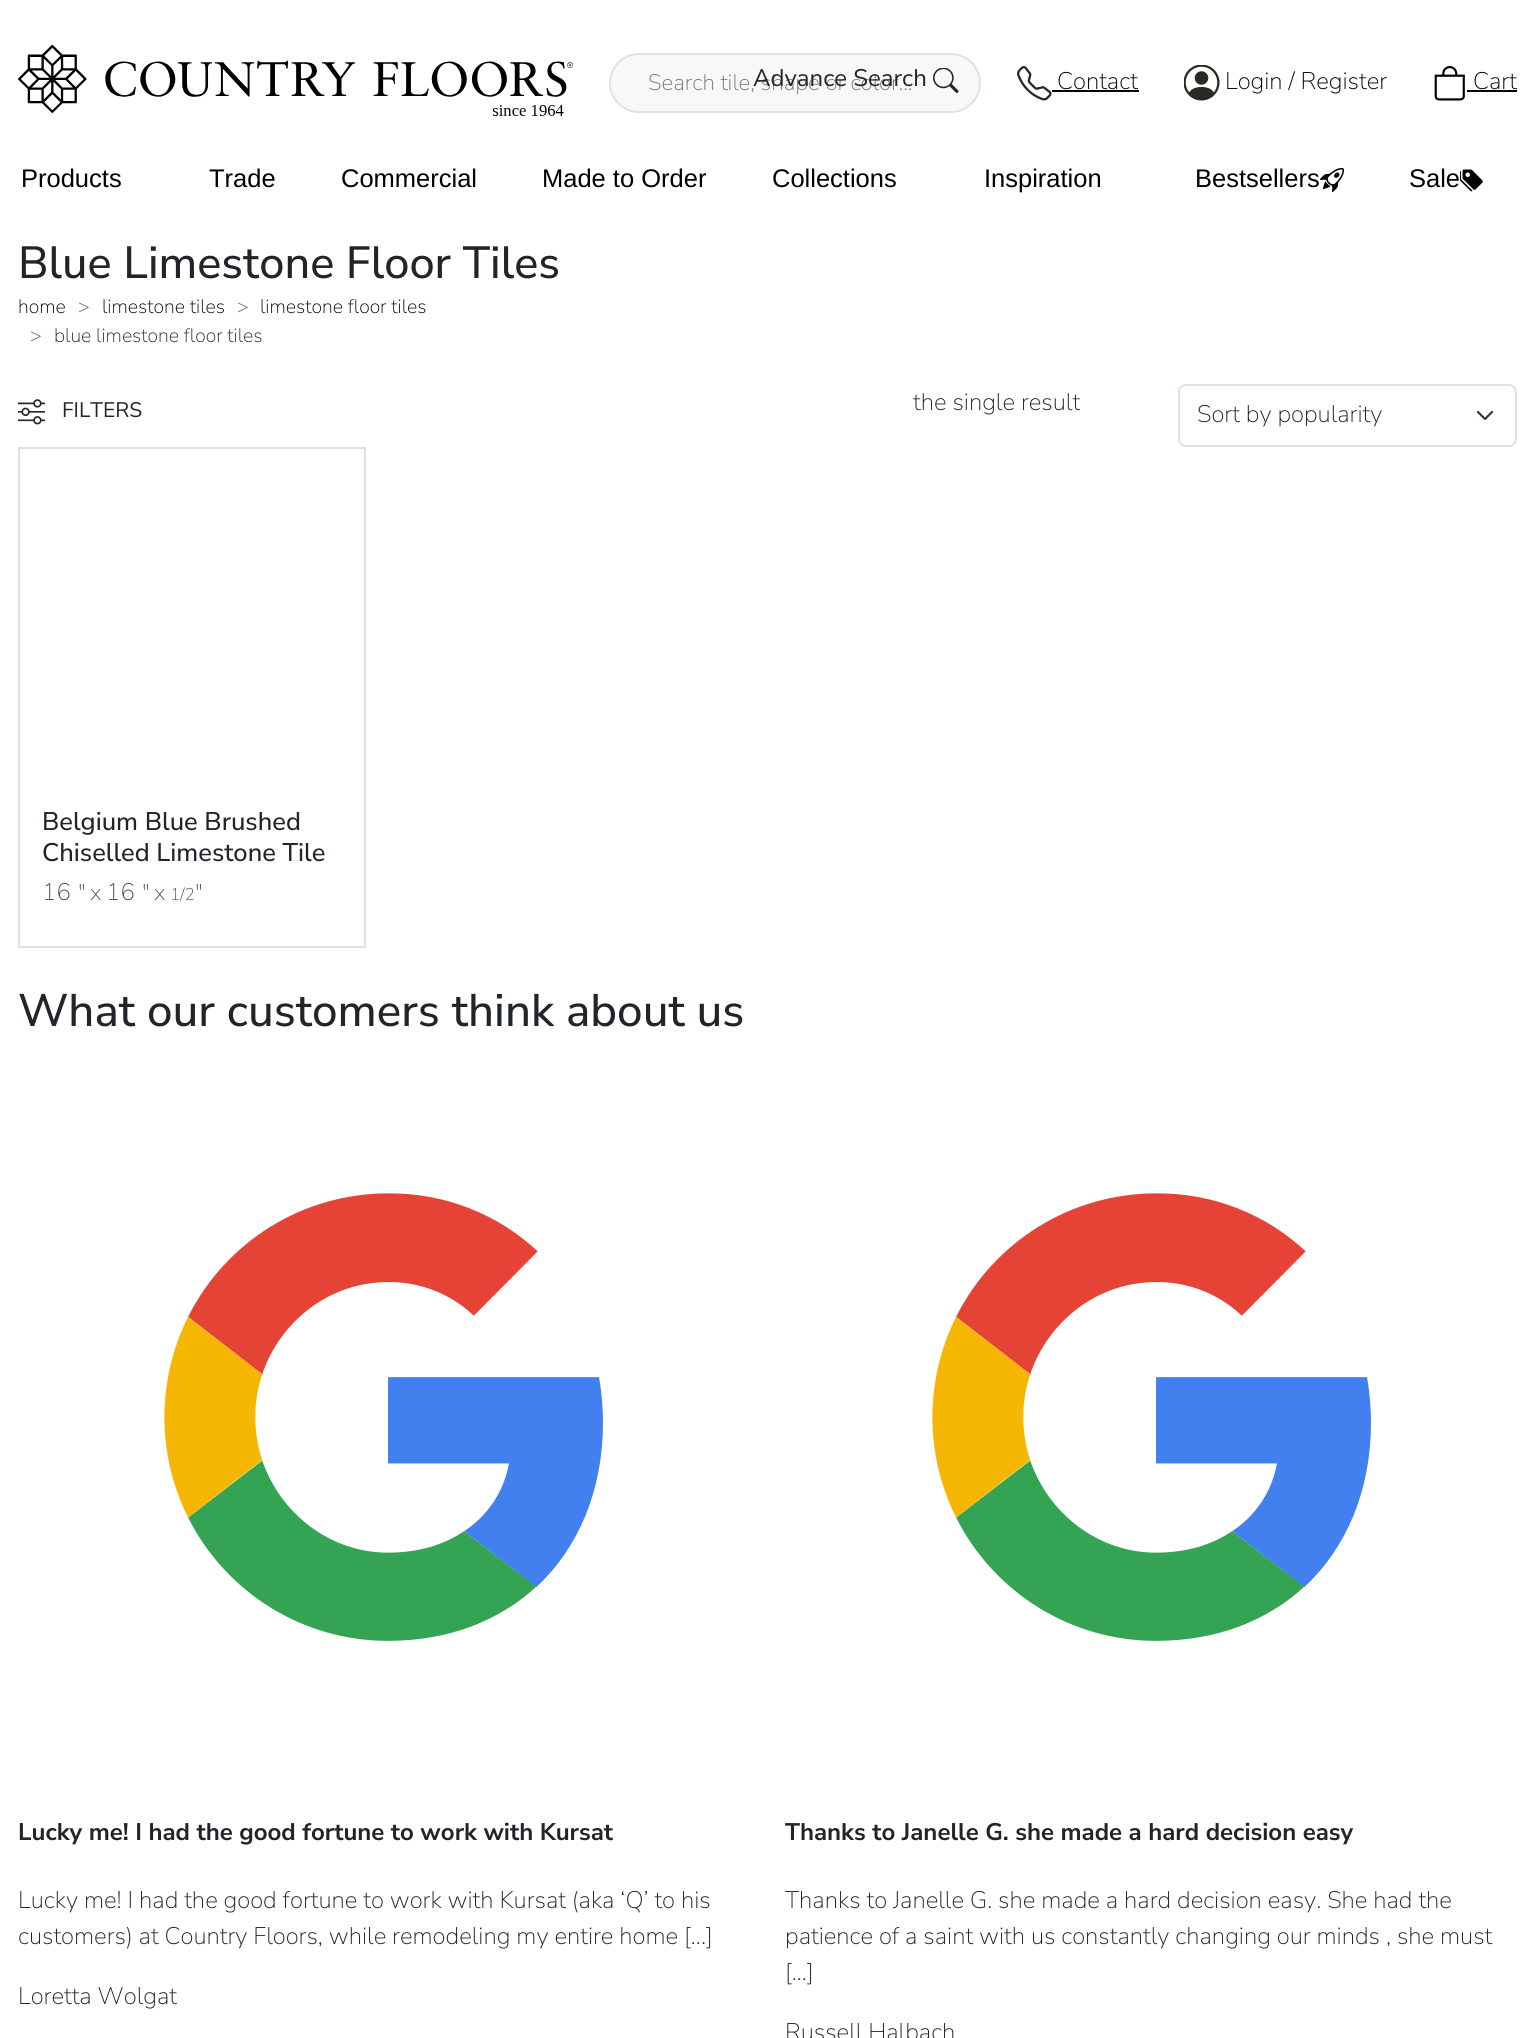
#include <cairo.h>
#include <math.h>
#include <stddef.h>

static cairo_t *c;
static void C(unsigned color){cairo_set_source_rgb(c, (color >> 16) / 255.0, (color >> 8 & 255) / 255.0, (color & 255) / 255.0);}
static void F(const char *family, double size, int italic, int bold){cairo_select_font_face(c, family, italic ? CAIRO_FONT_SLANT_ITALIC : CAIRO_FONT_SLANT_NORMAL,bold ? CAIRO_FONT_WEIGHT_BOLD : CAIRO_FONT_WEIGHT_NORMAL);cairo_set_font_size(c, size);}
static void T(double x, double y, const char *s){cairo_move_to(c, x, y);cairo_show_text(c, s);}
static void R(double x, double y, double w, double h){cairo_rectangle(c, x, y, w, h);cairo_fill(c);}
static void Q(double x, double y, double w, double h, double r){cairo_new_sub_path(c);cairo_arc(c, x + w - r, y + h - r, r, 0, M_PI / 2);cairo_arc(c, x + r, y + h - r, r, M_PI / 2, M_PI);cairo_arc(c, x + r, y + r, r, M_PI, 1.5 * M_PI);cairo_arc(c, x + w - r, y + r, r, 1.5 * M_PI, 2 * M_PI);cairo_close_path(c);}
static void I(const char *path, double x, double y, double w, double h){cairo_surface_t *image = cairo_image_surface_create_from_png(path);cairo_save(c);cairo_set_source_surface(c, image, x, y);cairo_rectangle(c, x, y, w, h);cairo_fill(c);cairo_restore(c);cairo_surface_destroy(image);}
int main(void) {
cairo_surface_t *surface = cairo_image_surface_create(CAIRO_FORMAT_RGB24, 1534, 2038);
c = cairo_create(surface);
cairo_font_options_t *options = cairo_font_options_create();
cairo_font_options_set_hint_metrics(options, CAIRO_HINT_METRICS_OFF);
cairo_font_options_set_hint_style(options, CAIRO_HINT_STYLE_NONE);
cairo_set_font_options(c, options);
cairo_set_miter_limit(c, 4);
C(0xffffff);
cairo_paint(c);
I("1.png",18,45,555,71);
C(0xf8f8f8);
Q(610,54,370,58,29);
cairo_fill_preserve(c);
C(0xdee2e6);
cairo_stroke(c);
F("Nunito Sans ExtraLight",22.5,0,0);
C(0x757575);
T(648,90,"Search tile, shape or color...");
F("Nunito Sans",24,0,0);
C(0x212529);
T(753,86,"Advance Search");
I("2.png",933,68,26,25);
I("3.png",1017,66,35,35);
F("Nunito Sans ExtraLight",24,0,0);
C(0x000000);
T(1057,89,"Contact");
R(1052,90,87,2);
I("4.png",1184,65,36,36);
T(1225,89,"Login / Register");
I("5.png",1434,66,31,35);
T(1473,89,"Cart");
R(1467,90,50,2);
F("Liberation Sans",25.5,0,0);
T(21,187,"Products");
T(209,187,"Trade");
T(341,187,"Commercial");
T(542,187,"Made to Order");
T(772,187,"Collections");
T(984,187,"Inspiration");
T(1195,187,"Bestsellers");
I("6.png",1320,168,24,24);
T(1409,187,"Sale");
I("7.png",1460,169,23,23);
F("Nunito Sans Medium",45,0,0);
C(0x212529);
T(18,278,"Blue Limestone Floor Tiles");
F("Nunito Sans ExtraLight",19.5,0,0);
C(0x000000);
T(18,313,"home");
C(0x595c5f);
T(78,313,">");
C(0x000000);
T(102,313,"limestone tiles");
C(0x595c5f);
T(237,313,">");
C(0x000000);
T(260,313,"limestone floor tiles");
C(0x595c5f);
T(30,342,">");
C(0x212529);
T(54,342,"blue limestone floor tiles");
I("8.png",18,399,27,26);
F("Nunito Sans",21,0,0);
T(62,417,"FILTERS");
F("Nunito Sans ExtraLight",24,0,0);
T(913,410,"the single result");
cairo_new_path(c);
cairo_move_to(c,1478,412);
cairo_line_to(c,1485,419);
cairo_line_to(c,1492,412);
C(0x343a40);
cairo_set_line_width(c,2.2);
cairo_set_line_cap(c,CAIRO_LINE_CAP_ROUND);
cairo_set_line_join(c,CAIRO_LINE_JOIN_ROUND);
cairo_stroke(c);
Q(1179,385,337,61,7);
C(0xdee2e6);
cairo_set_line_width(c,2);
cairo_set_line_cap(c,CAIRO_LINE_CAP_BUTT);
cairo_set_line_join(c,CAIRO_LINE_JOIN_MITER);
cairo_stroke(c);
C(0x212529);
T(1197,422,"Sort by popularity");
cairo_rectangle(c,19,448,346,499);
C(0xdee2e6);
cairo_stroke(c);
F("Nunito Sans Medium",25.5,0,0);
C(0x212529);
T(42,830,"Belgium Blue Brushed");
T(42,861,"Chiselled Limestone Tile");
F("Nunito Sans ExtraLight",24,0,0);
C(0x495057);
T(42,900,"16");
F("Nunito Sans ExtraLight",22.5,0,0);
T(78,900,"\"");
T(90,900,"x");
F("Nunito Sans ExtraLight",24,0,0);
T(106,900,"16");
F("Nunito Sans ExtraLight",22.5,0,0);
T(142,900,"\"");
T(154,900,"x");
F("Nunito Sans ExtraLight",17,0,0);
T(170,900,"1/2");
F("Nunito Sans ExtraLight",22.5,0,0);
T(195,900,"\"");
F("Nunito Sans Medium",45.6,0,0);
C(0x212529);
T(18,1026,"What our customers think about us");
I("9.png",164,1193,439,448);
F("Nunito Sans",24,0,1);
T(18,1840,"Lucky me! I had the good fortune to work with Kursat");
F("Nunito Sans ExtraLight",24,0,0);
T(18,1908,"Lucky me! I had the good fortune to work with Kursat (aka ‘Q’ to his");
T(18,1944,"customers) at Country Floors, while remodeling my entire home [...]");
T(18,2004,"Loretta Wolgat");
I("9.png",932,1193,439,448);
F("Nunito Sans",24,0,1);
T(785,1840,"Thanks to Janelle G. she made a hard decision easy");
F("Nunito Sans ExtraLight",24,0,0);
T(785,1908,"Thanks to Janelle G. she made a hard decision easy. She had the");
T(785,1944,"patience of a saint with us constantly changing our minds , she must");
T(785,1980,"[...]");
T(785,2040,"Russell Halbach");
cairo_surface_write_to_png(surface, "o.png");
cairo_font_options_destroy(options);
cairo_destroy(c);
cairo_surface_destroy(surface);
return 0;
}
